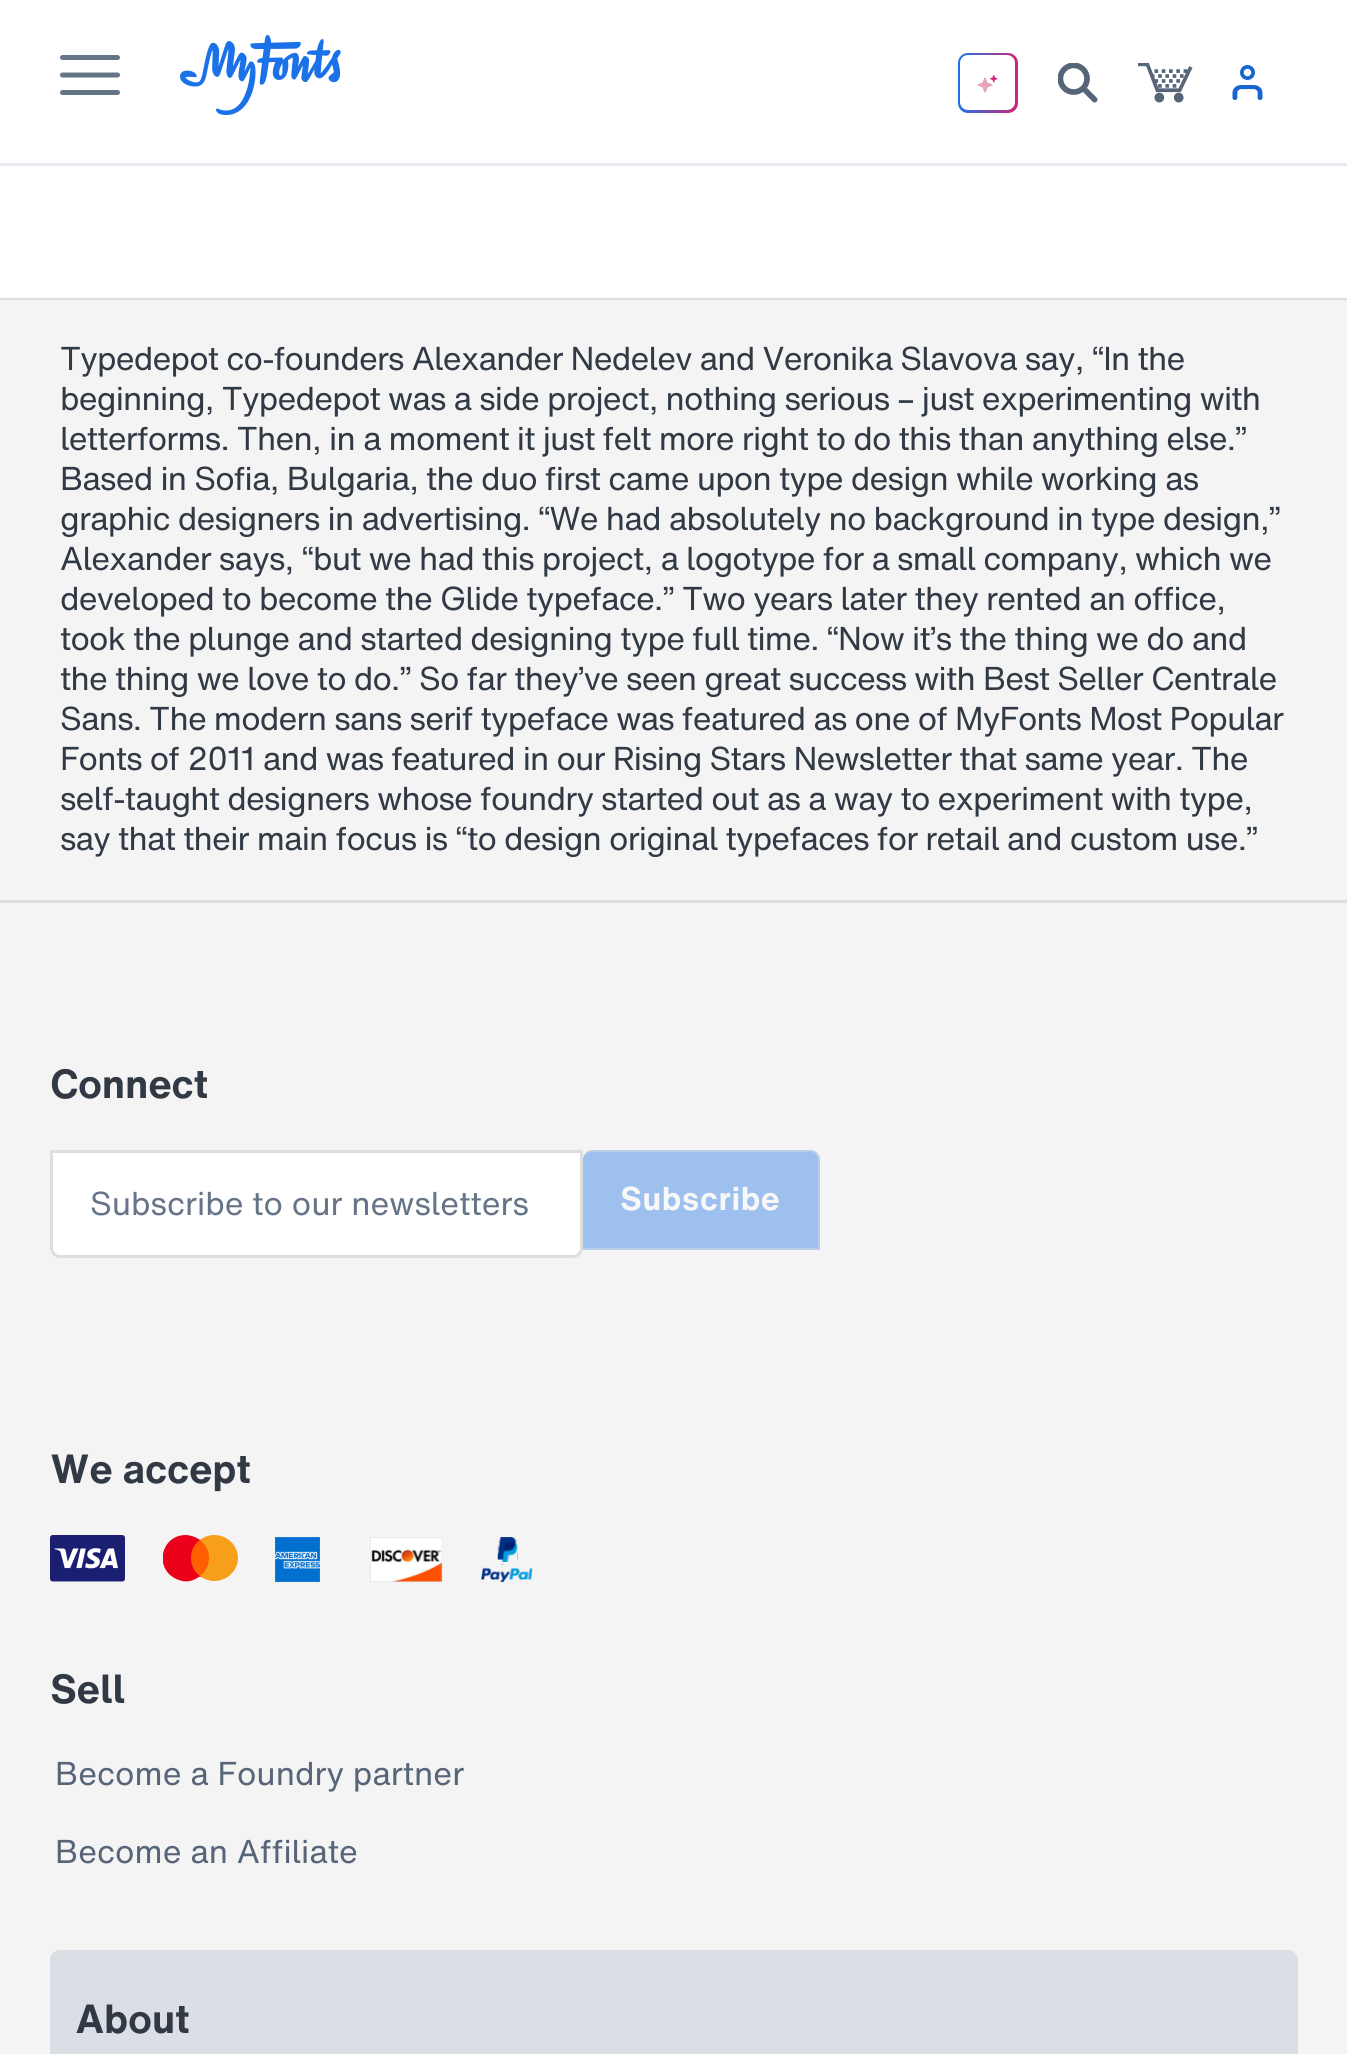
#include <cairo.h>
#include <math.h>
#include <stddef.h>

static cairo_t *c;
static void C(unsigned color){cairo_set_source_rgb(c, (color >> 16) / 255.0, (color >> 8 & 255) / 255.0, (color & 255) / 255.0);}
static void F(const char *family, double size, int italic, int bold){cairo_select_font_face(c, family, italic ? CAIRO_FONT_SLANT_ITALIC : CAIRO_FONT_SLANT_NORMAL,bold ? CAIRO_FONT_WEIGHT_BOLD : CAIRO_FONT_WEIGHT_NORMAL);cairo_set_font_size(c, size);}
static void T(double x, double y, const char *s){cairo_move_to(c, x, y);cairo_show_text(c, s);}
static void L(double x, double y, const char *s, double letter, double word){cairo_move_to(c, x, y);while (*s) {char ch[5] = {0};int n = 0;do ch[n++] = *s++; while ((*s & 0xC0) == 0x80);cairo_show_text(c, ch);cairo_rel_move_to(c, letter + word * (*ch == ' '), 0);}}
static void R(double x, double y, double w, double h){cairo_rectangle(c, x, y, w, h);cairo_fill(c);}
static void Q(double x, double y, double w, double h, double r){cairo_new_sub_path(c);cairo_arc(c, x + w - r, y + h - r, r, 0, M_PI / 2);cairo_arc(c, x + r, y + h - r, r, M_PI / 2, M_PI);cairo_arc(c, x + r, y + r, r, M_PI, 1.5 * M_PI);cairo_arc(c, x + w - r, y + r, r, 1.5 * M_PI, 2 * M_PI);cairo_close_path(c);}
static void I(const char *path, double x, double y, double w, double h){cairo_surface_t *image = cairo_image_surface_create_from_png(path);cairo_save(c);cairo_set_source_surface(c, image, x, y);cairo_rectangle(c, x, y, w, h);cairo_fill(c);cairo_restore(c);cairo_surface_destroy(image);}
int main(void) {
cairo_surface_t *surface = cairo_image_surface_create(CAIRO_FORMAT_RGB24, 1347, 2054);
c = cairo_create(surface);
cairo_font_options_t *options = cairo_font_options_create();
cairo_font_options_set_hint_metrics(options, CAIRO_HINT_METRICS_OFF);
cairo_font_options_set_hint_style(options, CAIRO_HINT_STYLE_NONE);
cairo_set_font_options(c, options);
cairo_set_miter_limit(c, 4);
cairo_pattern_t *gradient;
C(0xffffff);
cairo_paint(c);
C(0xe7eaee);
R(0,163,1347,3);
I("1.png",60,55,60,40);
I("2.png",180,35,161,80);
gradient = cairo_pattern_create_linear(958,83,1018,83);
cairo_pattern_add_color_stop_rgba(gradient,0,0.102,0.451,0.91,1);
cairo_pattern_add_color_stop_rgba(gradient,1,0.835,0.137,0.467,1);
cairo_set_source(c,gradient);
cairo_pattern_destroy(gradient);
Q(958,53,60,60,10);
cairo_fill(c);
C(0xffffff);
Q(960,55,55,55,8);
cairo_fill(c);
I("3.png",977,75,21,18);
I("4.png",1058,63,40,40);
I("5.png",1138,63,55,40);
I("6.png",1232,65,31,35);
C(0xdfdede);
R(0,298,1347,2);
C(0xf4f4f4);
R(0,300,1347,600);
C(0xdfdede);
R(0,900,1347,3);
F("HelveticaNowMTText",32.5,0,0);
C(0x313945);
L(60,370,"Typedepot co-founders Alexander Nedelev and Veronika Slavova say, “In the",-.8,0);
L(60,410,"beginning, Typedepot was a side project, nothing serious – just experimenting with",-.8,0);
L(60,450,"letterforms. Then, in a moment it just felt more right to do this than anything else.”",-.8,0);
L(60,490,"Based in Sofia, Bulgaria, the duo first came upon type design while working as",-.8,0);
L(60,530,"graphic designers in advertising. “We had absolutely no background in type design,”",-.8,0);
L(60,570,"Alexander says, “but we had this project, a logotype for a small company, which we",-.8,0);
L(60,610,"developed to become the Glide typeface.” Two years later they rented an office,",-.8,0);
L(60,650,"took the plunge and started designing type full time. “Now it’s the thing we do and",-.8,0);
L(60,690,"the thing we love to do.” So far they’ve seen great success with Best Seller Centrale",-.8,0);
L(60,730,"Sans. The modern sans serif typeface was featured as one of MyFonts Most Popular",-.8,0);
L(60,770,"Fonts of 2011 and was featured in our Rising Stars Newsletter that same year. The",-.8,0);
L(60,810,"self-taught designers whose foundry started out as a way to experiment with type,",-.8,0);
L(60,850,"say that their main focus is “to design original typefaces for retail and custom use.”",-.8,0);
C(0xf4f4f4);
R(0,903,1347,1151);
F("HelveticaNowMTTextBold",40,0,1);
C(0x313945);
L(50,1098,"Connect",-.8,0);
C(0xffffff);
cairo_new_path(c);
cairo_move_to(c,51.5,1151.5);
cairo_line_to(c,581.5,1151.5);
cairo_line_to(c,581.5,1248);
cairo_curve_to(c,581.5,1252.5,577.5,1256.5,573,1256.5);
cairo_line_to(c,60,1256.5);
cairo_curve_to(c,55.5,1256.5,51.5,1252.5,51.5,1248);
cairo_close_path(c);
cairo_fill_preserve(c);
C(0xdfdede);
cairo_set_line_width(c,3);
cairo_stroke(c);
F("HelveticaNowMTText",32.5,0,0);
C(0x667488);
T(90,1215,"Subscribe to our newsletters");
C(0x9dc0ef);
cairo_new_path(c);
cairo_move_to(c,593,1150);
cairo_line_to(c,810,1150);
cairo_curve_to(c,815.5,1150,820,1154.5,820,1160);
cairo_line_to(c,820,1250);
cairo_line_to(c,583,1250);
cairo_line_to(c,583,1160);
cairo_curve_to(c,583,1154.5,587.5,1150,593,1150);
cairo_close_path(c);
cairo_fill(c);
cairo_set_source_rgba(c,0.875,0.871,0.871,0.4);
cairo_set_fill_rule(c,CAIRO_FILL_RULE_EVEN_ODD);
cairo_new_path(c);
cairo_move_to(c,592,1150);
cairo_line_to(c,810,1150);
cairo_curve_to(c,816,1150,820,1154,820,1160);
cairo_line_to(c,820,1250);
cairo_line_to(c,582,1250);
cairo_line_to(c,582,1160);
cairo_curve_to(c,582,1154,587,1150,592,1150);
cairo_close_path(c);
cairo_move_to(c,592,1152);
cairo_line_to(c,810,1152);
cairo_curve_to(c,814,1152,818,1156,818,1160);
cairo_line_to(c,818,1248);
cairo_line_to(c,582,1248);
cairo_line_to(c,582,1160);
cairo_curve_to(c,582,1156,587,1152,592,1152);
cairo_close_path(c);
cairo_fill(c);
F("HelveticaNowMTTextBold",32.5,0,1);
C(0xf8f8f8);
T(620,1210,"Subscribe");
F("HelveticaNowMTTextBold",40,0,1);
C(0x313945);
L(50,1483,"We accept",-.8,0);
I("7.png",50,1535,75,47);
C(0xff5f00);
R(191,1540,18,37);
cairo_save(c);
cairo_set_fill_rule(c,CAIRO_FILL_RULE_WINDING);
cairo_rectangle(c,163,1535,75,48);
cairo_clip(c);
C(0xeb001b);
cairo_new_path(c);
cairo_move_to(c,191,1558);
cairo_curve_to(c,191,1551,194,1544,200,1540);
cairo_curve_to(c,196,1537,190,1535,185,1535);
cairo_curve_to(c,159,1536,154,1572,179,1580);
cairo_curve_to(c,186,1583,194,1581,200,1576);
cairo_curve_to(c,194,1572,191,1565,191,1558);
cairo_close_path(c);
cairo_fill(c);
cairo_restore(c);
C(0xf79e1b);
cairo_set_fill_rule(c,CAIRO_FILL_RULE_WINDING);
cairo_new_path(c);
cairo_move_to(c,238,1558);
cairo_curve_to(c,238,1577,215,1588,200,1576);
cairo_curve_to(c,212,1567,212,1549,200,1540);
cairo_curve_to(c,215,1528,238,1539,238,1558);
cairo_close_path(c);
cairo_fill(c);
I("8.png",275,1537,45,45);
I("9.png",370,1537,73,45);
I("10.png",481,1537,52,45);
C(0x313945);
L(50,1703,"Sell",-.8,0);
F("HelveticaNowMTText",32.5,0,0);
C(0x576579);
T(55,1785,"Become a Foundry partner");
T(55,1863,"Become an Affiliate");
C(0xdbdfe5);
Q(50,1950,1248,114,10);
cairo_fill(c);
F("HelveticaNowMTTextBold",40,0,1);
C(0x313945);
L(75,2033,"About",-.8,0);
cairo_surface_write_to_png(surface, "o.png");
cairo_font_options_destroy(options);
cairo_destroy(c);
cairo_surface_destroy(surface);
return 0;
}
